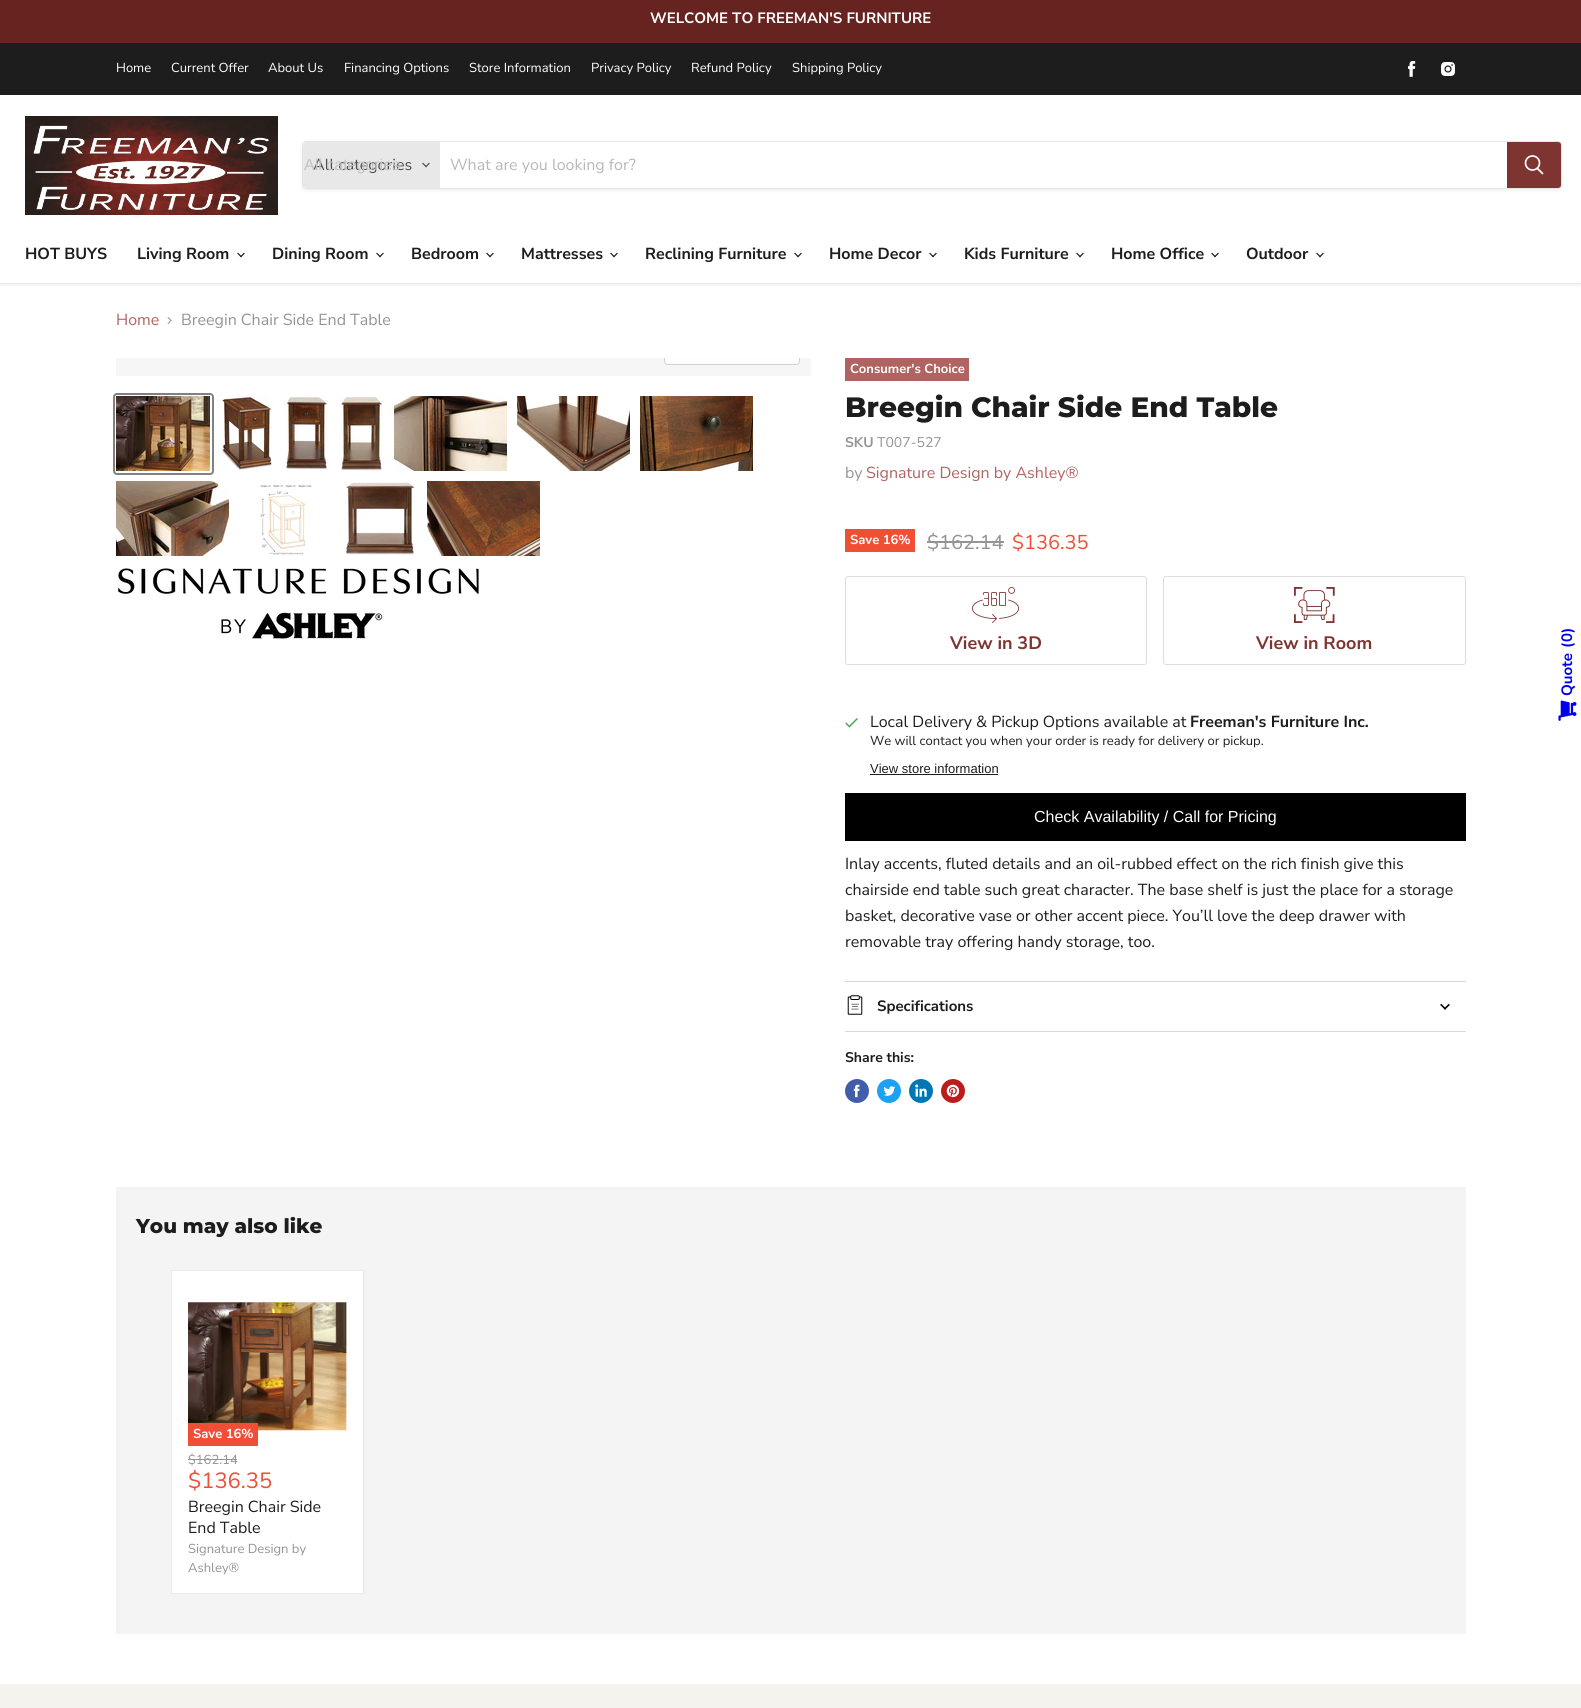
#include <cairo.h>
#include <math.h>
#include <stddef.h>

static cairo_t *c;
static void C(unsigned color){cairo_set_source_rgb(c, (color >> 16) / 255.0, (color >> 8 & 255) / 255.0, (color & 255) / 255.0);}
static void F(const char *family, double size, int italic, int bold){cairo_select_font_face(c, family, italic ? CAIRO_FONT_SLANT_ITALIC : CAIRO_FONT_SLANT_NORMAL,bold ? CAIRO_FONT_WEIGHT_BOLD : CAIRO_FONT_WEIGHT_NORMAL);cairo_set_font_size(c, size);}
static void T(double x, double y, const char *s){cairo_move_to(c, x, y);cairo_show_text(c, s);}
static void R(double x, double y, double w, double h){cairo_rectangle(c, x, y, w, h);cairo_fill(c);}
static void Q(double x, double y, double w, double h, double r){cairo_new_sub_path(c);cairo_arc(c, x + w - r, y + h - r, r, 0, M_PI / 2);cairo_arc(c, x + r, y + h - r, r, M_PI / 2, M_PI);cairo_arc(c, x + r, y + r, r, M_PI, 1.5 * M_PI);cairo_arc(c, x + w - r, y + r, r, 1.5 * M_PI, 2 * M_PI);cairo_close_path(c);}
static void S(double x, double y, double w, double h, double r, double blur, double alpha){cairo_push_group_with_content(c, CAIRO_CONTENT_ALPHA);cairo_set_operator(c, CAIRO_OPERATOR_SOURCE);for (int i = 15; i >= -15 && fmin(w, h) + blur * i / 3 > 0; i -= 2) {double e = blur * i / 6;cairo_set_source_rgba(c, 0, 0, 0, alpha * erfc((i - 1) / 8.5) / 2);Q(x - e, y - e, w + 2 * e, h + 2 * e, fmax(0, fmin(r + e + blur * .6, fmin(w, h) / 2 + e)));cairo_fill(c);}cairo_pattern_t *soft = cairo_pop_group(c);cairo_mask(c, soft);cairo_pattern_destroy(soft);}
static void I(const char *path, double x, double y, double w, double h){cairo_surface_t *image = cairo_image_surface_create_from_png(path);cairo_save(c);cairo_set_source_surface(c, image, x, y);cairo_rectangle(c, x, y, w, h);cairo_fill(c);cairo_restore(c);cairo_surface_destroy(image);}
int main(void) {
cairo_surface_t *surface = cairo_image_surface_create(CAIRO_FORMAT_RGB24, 1581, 1708);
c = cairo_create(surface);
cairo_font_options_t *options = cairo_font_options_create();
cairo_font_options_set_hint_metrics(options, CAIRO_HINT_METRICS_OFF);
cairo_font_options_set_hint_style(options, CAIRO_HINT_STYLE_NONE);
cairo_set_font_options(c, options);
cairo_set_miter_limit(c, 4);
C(0xffffff);
cairo_paint(c);
C(0x662320);
R(0,0,1581,43);
F("Nunito Sans",15,0,1);
C(0xffffff);
T(650,23,"WELCOME TO FREEMAN'S FURNITURE");
cairo_save(c);
cairo_rectangle(c,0,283,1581,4);
cairo_clip(c);
C(0x808080);
S(0,97,1581,187,0,2,.25);
cairo_restore(c);
C(0x1d1d1d);
R(0,43,1581,52);
C(0xffffff);
R(0,95,1581,1);
F("Nunito Sans",13,0,0);
T(116,72,"Home");
T(171,72,"Current Offer");
T(268,72,"About Us");
T(344,72,"Financing Options");
T(469,72,"Store Information");
T(591,72,"Privacy Policy");
T(691,72,"Refund Policy");
T(792,72,"Shipping Policy");
I("1.png",1408,61,8,16);
I("2.png",1441,62,14,14);
I("3.png",25,116,253,99);
cairo_save(c);
cairo_set_fill_rule(c,CAIRO_FILL_RULE_EVEN_ODD);
cairo_new_path(c);
cairo_move_to(c,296,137);
cairo_line_to(c,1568,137);
cairo_line_to(c,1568,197);
cairo_line_to(c,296,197);
cairo_close_path(c);
cairo_move_to(c,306,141);
cairo_line_to(c,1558,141);
cairo_curve_to(c,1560,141,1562,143,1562,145);
cairo_line_to(c,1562,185);
cairo_curve_to(c,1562,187,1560,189,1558,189);
cairo_line_to(c,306,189);
cairo_curve_to(c,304,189,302,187,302,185);
cairo_line_to(c,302,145);
cairo_curve_to(c,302,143,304,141,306,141);
cairo_close_path(c);
cairo_clip(c);
C(0x808080);
S(302,143,1260,48,4,1.5,.11);
cairo_restore(c);
Q(302.5,141.5,1259,47,3.5);
cairo_set_source_rgba(c,0.502,0.502,0.502,0.2);
cairo_set_line_width(c,1);
cairo_stroke(c);
C(0xe8e8e8);
cairo_new_path(c);
cairo_move_to(c,306,142);
cairo_line_to(c,440,142);
cairo_line_to(c,440,188);
cairo_line_to(c,306,188);
cairo_curve_to(c,304.5,188,303,186.5,303,185);
cairo_line_to(c,303,145);
cairo_curve_to(c,303,143.5,304.5,142,306,142);
cairo_close_path(c);
cairo_fill(c);
F("Nunito Sans",16,0,0);
C(0x4d4d4d);
T(313,170,"All categories");
F("Liberation Sans",16,0,0);
C(0xc3c3c3);
T(304,170,"All categories");
I("4.png",422,162,8,6);
F("Nunito Sans",16,0,0);
C(0xb8b8b8);
T(450,170,"What are you looking for?");
C(0x7e3532);
cairo_new_path(c);
cairo_move_to(c,1507.5,142.5);
cairo_line_to(c,1558,142.5);
cairo_curve_to(c,1559.5,142.5,1560.5,143.5,1560.5,145);
cairo_line_to(c,1560.5,185);
cairo_curve_to(c,1560.5,186.5,1559.5,187.5,1558,187.5);
cairo_line_to(c,1507.5,187.5);
cairo_close_path(c);
cairo_fill_preserve(c);
cairo_stroke(c);
cairo_new_path(c);
cairo_move_to(c,1542.5,173.5);
cairo_line_to(c,1537.5,168.5);
C(0xffffff);
cairo_set_line_width(c,1.7);
cairo_set_line_cap(c,CAIRO_LINE_CAP_ROUND);
cairo_stroke(c);
cairo_arc(c,1532.5,163,7,0,2 * M_PI);
cairo_set_line_cap(c,CAIRO_LINE_CAP_BUTT);
cairo_stroke(c);
F("Nunito Sans",16,0,1);
C(0x1d1d1d);
T(25,259,"HOT BUYS");
T(137,259,"Living Room");
I("5.png",237,252,8,6);
T(272,259,"Dining Room");
I("5.png",376,252,8,6);
T(411,259,"Bedroom");
I("5.png",486,252,8,6);
T(521,259,"Mattresses");
I("5.png",610,252,8,6);
T(645,259,"Reclining Furniture");
I("5.png",794,252,8,6);
T(829,259,"Home Decor");
I("5.png",929,252,8,6);
T(964,259,"Kids Furniture");
I("5.png",1076,252,8,6);
T(1111,259,"Home Office");
I("5.png",1211,252,8,6);
T(1246,259,"Outdoor");
I("5.png",1316,252,8,6);
F("Nunito Sans",16,0,0);
C(0xb06461);
T(116,325,"Home");
I("6.png",167,317,5,7);
C(0x949494);
T(181,325,"Breegin Chair Side End Table");
C(0xf6f6f6);
R(116,358,695,18);
cairo_save(c);
cairo_rectangle(c,116,358,695,18);
cairo_clip(c);
Q(664.5,335.5,135,29,3.5);
C(0xd1d1d1);
cairo_set_line_width(c,1);
cairo_stroke(c);
cairo_restore(c);
cairo_set_source_rgba(c,1,1,1,0.9);
cairo_new_path(c);
cairo_move_to(c,665,358);
cairo_line_to(c,799,358);
cairo_line_to(c,799,361);
cairo_curve_to(c,799,362.5,797.5,364,796,364);
cairo_line_to(c,668,364);
cairo_curve_to(c,666.5,364,665,362.5,665,361);
cairo_close_path(c);
cairo_fill(c);
Q(114,394,99,80,3);
C(0x818181);
cairo_set_line_width(c,2);
cairo_stroke(c);
I("7.png",116,396,94,75);
I("8.png",220,396,54,75);
I("9.png",284,396,44,74);
I("10.png",339,396,45,75);
I("11.png",394,396,113,75);
I("12.png",517,396,113,75);
I("13.png",640,396,113,75);
I("14.png",116,481,113,75);
I("15.png",260,485,52,71);
I("16.png",343,481,72,75);
I("17.png",427,481,113,75);
I("18.png",117,568,362,71);
C(0xb06461);
R(845,358,124,23);
F("Nunito Sans",13,0,1);
C(0xffffff);
T(850,373,"Consumer's Choice");
F("Montserrat ExtraBold",28,0,0);
C(0x1d1d1d);
T(845,417,"Breegin Chair Side End Table");
F("Nunito Sans",14,0,1);
C(0x949494);
T(845,447,"SKU");
F("Nunito Sans",14,0,0);
T(877,447,"T007-527");
F("Nunito Sans",16,0,0);
T(845,478,"by");
C(0xb06461);
T(866,478,"Signature Design by Ashley®");
C(0xf04f36);
R(845,529,70,23);
F("Nunito Sans",13,0,1);
C(0xffffff);
T(850,544,"Save 16%");
F("Nunito Sans",20,0,0);
C(0x949494);
T(927,549,"$162.14");
R(927,541,77,2);
C(0xf04f36);
T(1012,549,"$136.35");
Q(845.5,576.5,301,88,2.5);
C(0xdddddd);
cairo_set_line_width(c,1);
cairo_stroke(c);
I("19.png",972,587,47,36);
F("Nunito Sans",18,0,1);
C(0x7e3532);
T(950,649,"View in 3D");
Q(1163.5,576.5,302,88,2.5);
C(0xdddddd);
cairo_stroke(c);
I("20.png",1294,587,41,36);
C(0x7e3532);
T(1256,649,"View in Room");
I("21.png",845,718,13,10);
F("Nunito Sans",16,0,0);
C(0x1d1d1d);
T(870,727,"Local Delivery & Pickup Options available at");
F("Nunito Sans",16,0,1);
T(1190,727,"Freeman's Furniture Inc.");
F("Nunito Sans",13,0,0);
T(870,745,"We will contact you when your order is ready for delivery or pickup.");
F("Liberation Sans",13,0,0);
T(870,773,"View store information");
R(870,774,128,1);
C(0x000000);
R(845,793,621,48);
F("Liberation Sans",16,0,0);
C(0xffffff);
T(1034,822,"Check Availability / Call for Pricing");
F("Nunito Sans",16,0,0);
C(0x1d1d1d);
T(845,869,"Inlay accents, fluted details and an oil-rubbed effect on the rich finish give this");
T(845,895,"chairside end table such great character. The base shelf is just the place for a storage");
T(845,921,"basket, decorative vase or other accent piece. You’ll love the deep drawer with");
T(845,947,"removable tray offering handy storage, too.");
C(0xd9d9d9);
R(845,981,621,1);
R(845,1031,621,1);
I("22.png",847,995,16,20);
F("Nunito Sans",15,0,1);
C(0x1d1d1d);
T(877,1011,"Specifications");
I("23.png",1440,1003,10,7);
F("Nunito Sans",14,0,1);
T(845,1062,"Share this:");
C(0x425dab);
cairo_new_path(c);
cairo_arc(c,857,1091,12,0,2 * M_PI);
cairo_fill(c);
I("24.png",853,1084,7,14);
C(0x1da1f2);
cairo_arc(c,889,1091,12,0,2 * M_PI);
cairo_fill(c);
I("25.png",883,1086,13,10);
C(0x0077b5);
cairo_arc(c,921,1091,12,0,2 * M_PI);
cairo_fill(c);
I("26.png",915,1084,12,13);
C(0xbd1c1c);
cairo_arc(c,953,1091,12,0,2 * M_PI);
cairo_fill(c);
I("27.png",946,1084,14,14);
C(0xf4f4f4);
R(116,1187,1350,447);
F("Montserrat ExtraBold",20,0,0);
C(0x1d1d1d);
T(136,1233,"You may also like");
cairo_save(c);
cairo_rectangle(c,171,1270,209,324);
cairo_clip(c);
C(0x808080);
S(171,1271,193,324,0,2,.11);
cairo_restore(c);
C(0xffffff);
cairo_rectangle(c,171.5,1270.5,192,323);
cairo_fill_preserve(c);
C(0xebebeb);
cairo_stroke(c);
I("28.png",188,1302,159,129);
C(0xf04f36);
R(188,1423,70,23);
F("Nunito Sans",13,0,1);
C(0xffffff);
T(193,1438,"Save 16%");
F("Nunito Sans",13,0,0);
C(0x949494);
T(188,1464,"$162.14");
R(188,1459,49,1);
F("Nunito Sans",22,0,0);
C(0xf04f36);
T(188,1488,"$136.35");
F("Nunito Sans",16,0,0);
C(0x1d1d1d);
T(188,1512,"Breegin Chair Side");
T(188,1533,"End Table");
F("Nunito Sans",13,0,0);
C(0x949494);
T(188,1553,"Signature Design by");
T(188,1572,"Ashley®");
F("Nunito Sans",15,0,1);
C(0x0000ee);
cairo_save(c);
cairo_translate(c,1572,633);
cairo_rotate(c,-90 * M_PI / 180);
T(0,0,")");
cairo_restore(c);
cairo_save(c);
cairo_translate(c,1572,642);
cairo_rotate(c,-90 * M_PI / 180);
T(0,0,"0");
cairo_restore(c);
cairo_save(c);
cairo_translate(c,1572,648);
cairo_rotate(c,-90 * M_PI / 180);
T(0,0,"(");
cairo_restore(c);
cairo_save(c);
cairo_translate(c,1572,696);
cairo_rotate(c,-90 * M_PI / 180);
T(0,0,"Quote");
cairo_restore(c);
I("29.png",1558,700,19,21);
C(0xf5f3ed);
R(0,1684,1581,24);
cairo_surface_write_to_png(surface, "o.png");
cairo_font_options_destroy(options);
cairo_destroy(c);
cairo_surface_destroy(surface);
return 0;
}
